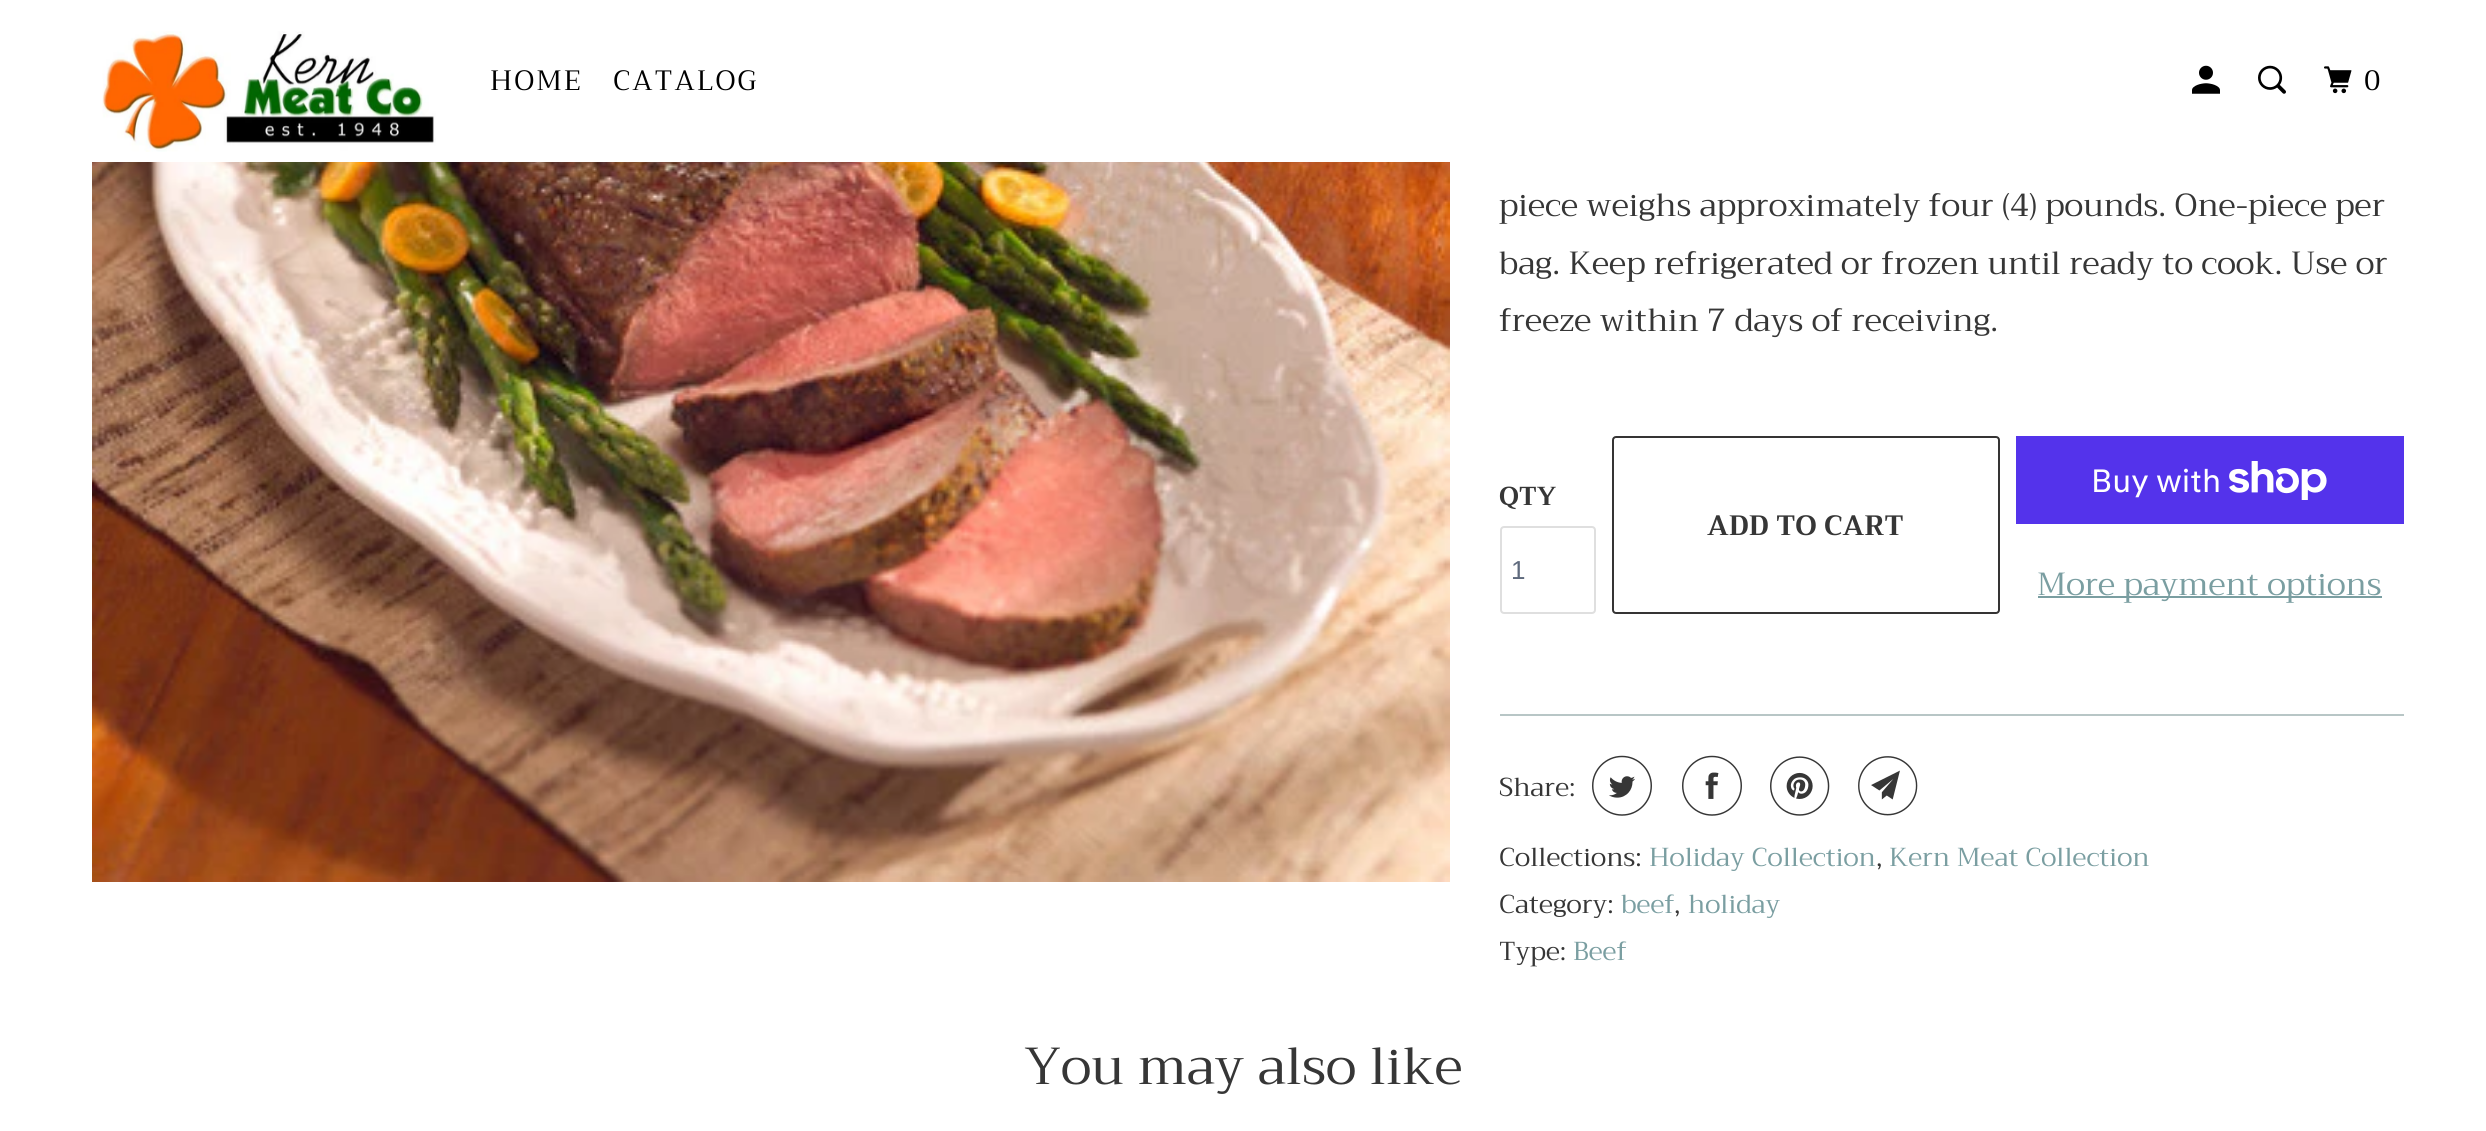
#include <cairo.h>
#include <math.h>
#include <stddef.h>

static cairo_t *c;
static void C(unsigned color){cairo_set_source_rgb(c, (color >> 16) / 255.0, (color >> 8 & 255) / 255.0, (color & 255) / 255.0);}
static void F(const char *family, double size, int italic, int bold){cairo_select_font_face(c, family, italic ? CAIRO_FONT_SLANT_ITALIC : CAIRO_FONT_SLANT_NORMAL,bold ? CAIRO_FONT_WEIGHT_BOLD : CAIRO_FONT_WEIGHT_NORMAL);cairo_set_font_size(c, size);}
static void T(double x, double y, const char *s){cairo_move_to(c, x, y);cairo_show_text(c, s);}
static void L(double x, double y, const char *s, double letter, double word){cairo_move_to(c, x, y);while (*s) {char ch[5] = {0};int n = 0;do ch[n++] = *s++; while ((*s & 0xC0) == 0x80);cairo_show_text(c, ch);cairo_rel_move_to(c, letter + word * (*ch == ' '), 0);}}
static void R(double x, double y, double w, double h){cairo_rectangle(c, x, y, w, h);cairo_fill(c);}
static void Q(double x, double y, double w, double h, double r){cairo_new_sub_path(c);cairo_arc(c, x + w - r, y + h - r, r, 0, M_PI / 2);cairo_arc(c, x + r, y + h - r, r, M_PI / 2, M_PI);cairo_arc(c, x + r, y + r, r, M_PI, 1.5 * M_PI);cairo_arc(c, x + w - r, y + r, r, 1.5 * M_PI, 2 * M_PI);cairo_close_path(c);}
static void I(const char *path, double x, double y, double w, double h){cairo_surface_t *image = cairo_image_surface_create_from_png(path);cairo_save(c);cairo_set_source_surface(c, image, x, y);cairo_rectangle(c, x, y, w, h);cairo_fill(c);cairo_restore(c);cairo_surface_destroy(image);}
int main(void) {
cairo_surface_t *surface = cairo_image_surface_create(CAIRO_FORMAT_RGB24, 2486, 1131);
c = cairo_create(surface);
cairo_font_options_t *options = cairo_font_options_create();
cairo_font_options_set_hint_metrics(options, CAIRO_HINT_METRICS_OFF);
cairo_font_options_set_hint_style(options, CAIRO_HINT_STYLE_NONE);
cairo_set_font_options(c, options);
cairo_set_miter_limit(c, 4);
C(0xffffff);
cairo_paint(c);
I("1.png",102,31,334,121);
F("Trirong",28,0,0);
C(0x000000);
L(490,90,"HOME",2,0);
L(613,90,"CATALOG",2,0);
I("2.png",2192,65,28,29);
I("3.png",2258,65,28,29);
I("4.png",2324,66,28,28);
L(2364,90,"0",2,0);
I("5.png",92,162,1358,720);
F("Trirong",32,0,0);
C(0x363636);
T(1499,216,"piece weighs approximately four (4) pounds. One-piece per");
T(1499,274,"bag. Keep refrigerated or frozen until ready to cook. Use or");
T(1499,331,"freeze within 7 days of receiving.");
F("Trirong",26,0,1);
T(1499,505,"QTY");
Q(1501,527,94,86,3);
C(0xdfdfdf);
cairo_stroke(c);
F("Liberation Sans",26,0,0);
C(0x5f6a7d);
T(1511,579,"1");
Q(1613,437,386,176,3);
C(0x353434);
cairo_stroke(c);
F("Trirong",28,0,1);
C(0x363636);
T(1707,535,"ADD TO CART");
C(0x5433eb);
R(2016,436,388,88);
F("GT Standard",32,0,0);
C(0xffffff);
T(2091,492,"Buy with");
I("6.png",2229,461,98,39);
C(0x7a9ea1);
R(2038,596,344,2);
F("Trirong",32,0,0);
T(2037,595,"More payment options");
C(0xb8c6c6);
R(1500,714,904,2);
F("Trirong",26,0,0);
C(0x363636);
T(1499,796,"Share:");
I("7.png",1592,755,60,61);
I("8.png",1682,755,60,61);
I("9.png",1770,756,60,60);
I("10.png",1858,756,60,60);
T(1499,866,"Collections:");
C(0x7a9ea1);
T(1649,866,"Holiday Collection");
C(0x363636);
T(1876,866,",");
C(0x7a9ea1);
T(1889,866,"Kern Meat Collection");
C(0x363636);
T(1499,913,"Category:");
C(0x7a9ea1);
T(1621,913,"beef");
C(0x363636);
T(1674,913,",");
C(0x7a9ea1);
T(1688,913,"holiday");
C(0x363636);
T(1499,960,"Type:");
C(0x7a9ea1);
T(1573,960,"Beef");
F("Trirong",52,0,0);
C(0x363636);
T(1024,1084,"You may also like");
cairo_surface_write_to_png(surface, "o.png");
cairo_font_options_destroy(options);
cairo_destroy(c);
cairo_surface_destroy(surface);
return 0;
}
